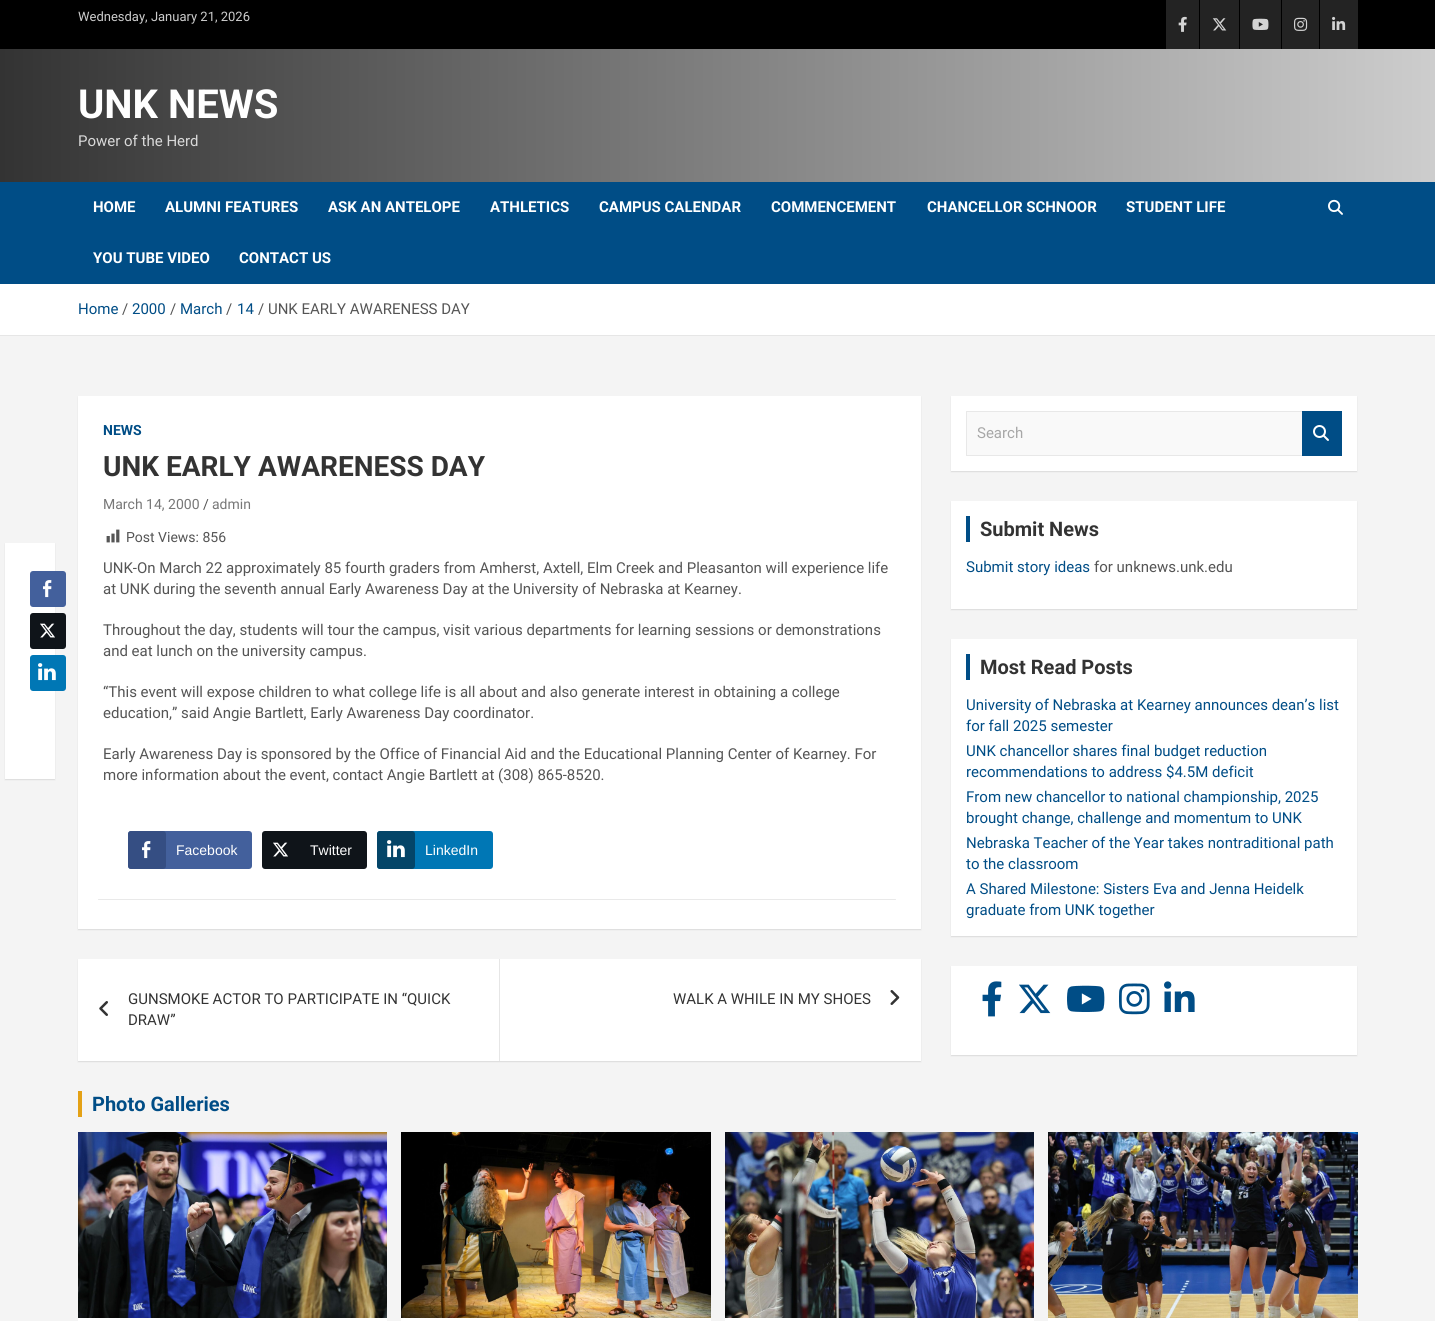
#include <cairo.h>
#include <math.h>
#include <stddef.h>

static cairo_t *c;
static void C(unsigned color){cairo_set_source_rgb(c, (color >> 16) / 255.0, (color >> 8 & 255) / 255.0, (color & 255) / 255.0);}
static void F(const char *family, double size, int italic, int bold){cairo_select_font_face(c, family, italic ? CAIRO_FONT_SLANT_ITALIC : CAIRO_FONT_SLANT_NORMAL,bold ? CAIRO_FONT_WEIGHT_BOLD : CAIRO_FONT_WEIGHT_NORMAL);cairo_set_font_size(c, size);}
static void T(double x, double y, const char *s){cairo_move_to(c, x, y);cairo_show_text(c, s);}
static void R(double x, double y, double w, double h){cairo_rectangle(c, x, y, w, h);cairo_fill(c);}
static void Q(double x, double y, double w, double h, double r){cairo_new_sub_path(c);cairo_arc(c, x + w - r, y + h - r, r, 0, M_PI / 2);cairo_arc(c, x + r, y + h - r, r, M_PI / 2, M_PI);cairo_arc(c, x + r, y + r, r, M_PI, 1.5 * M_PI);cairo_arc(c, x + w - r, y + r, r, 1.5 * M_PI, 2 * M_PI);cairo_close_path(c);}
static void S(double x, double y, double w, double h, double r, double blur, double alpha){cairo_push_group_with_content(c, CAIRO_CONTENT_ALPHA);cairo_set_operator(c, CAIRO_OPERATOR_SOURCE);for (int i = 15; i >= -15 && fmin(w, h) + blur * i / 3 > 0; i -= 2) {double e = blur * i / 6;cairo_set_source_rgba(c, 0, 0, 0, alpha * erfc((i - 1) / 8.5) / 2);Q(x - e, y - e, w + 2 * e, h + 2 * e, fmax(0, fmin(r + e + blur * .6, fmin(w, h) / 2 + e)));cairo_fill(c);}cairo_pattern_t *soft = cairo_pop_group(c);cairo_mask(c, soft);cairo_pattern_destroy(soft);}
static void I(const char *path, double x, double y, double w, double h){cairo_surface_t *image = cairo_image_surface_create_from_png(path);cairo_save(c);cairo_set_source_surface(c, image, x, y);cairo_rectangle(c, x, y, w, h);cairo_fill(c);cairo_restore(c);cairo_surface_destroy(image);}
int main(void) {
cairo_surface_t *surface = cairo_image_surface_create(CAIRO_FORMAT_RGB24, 1435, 1321);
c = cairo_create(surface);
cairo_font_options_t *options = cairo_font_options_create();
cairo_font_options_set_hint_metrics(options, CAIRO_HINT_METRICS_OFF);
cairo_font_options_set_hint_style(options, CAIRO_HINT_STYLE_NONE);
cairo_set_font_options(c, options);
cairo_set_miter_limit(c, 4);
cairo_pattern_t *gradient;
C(0xf4f4f4);
cairo_paint(c);
C(0x000000);
S(5,544,50,236,0,.5,.1);
C(0xffffff);
R(5,543,50,236);
C(0x43609c);
Q(30,571,36,36,3);
cairo_fill(c);
I("1.png",43,580,9,18);
C(0x0f1419);
Q(30,613,36,36,3);
cairo_fill(c);
I("2.png",40,623,15,15);
C(0x0077b5);
Q(30,655,36,36,3);
cairo_fill(c);
I("3.png",38,663,18,18);
C(0x000000);
R(0,0,1435,49);
F("Roboto",13,0,0);
C(0xcccccc);
T(78,21,"Wednesday, January 21, 2026");
C(0x232323);
R(1166,0,33,49);
I("4.png",1178,16,9,16);
R(1200,0,39,49);
I("5.png",1212,18,15,13);
R(1240,0,41,49);
I("6.png",1252,18,17,12);
R(1282,0,37,49);
I("7.png",1294,17,14,14);
R(1320,0,38,49);
I("8.png",1332,16,14,14);
gradient = cairo_pattern_create_linear(0,116,1435,115);
cairo_pattern_add_color_stop_rgba(gradient,0,0.2,0.2,0.2,1);
cairo_pattern_add_color_stop_rgba(gradient,1,0.804,0.804,0.804,1);
cairo_set_source(c,gradient);
cairo_pattern_destroy(gradient);
R(0,49,1435,133);
F("Roboto",40,0,1);
C(0xffffff);
T(78,118,"UNK NEWS");
F("Roboto",15,0,0);
C(0xd9d9d9);
T(78,146,"Power of the Herd");
C(0x004d86);
R(0,182,1435,102);
F("Roboto",15,0,1);
C(0xffffff);
T(93,212,"HOME");
T(165,212,"ALUMNI FEATURES");
T(328,212,"ASK AN ANTELOPE");
T(490,212,"ATHLETICS");
T(599,212,"CAMPUS CALENDAR");
T(771,212,"COMMENCEMENT");
T(927,212,"CHANCELLOR SCHNOOR");
T(1126,212,"STUDENT LIFE");
T(93,263,"YOU TUBE VIDEO");
T(239,263,"CONTACT US");
I("9.png",1328,199,15,16);
R(0,284,1435,51);
C(0xe6e6e6);
R(0,335,1435,1);
F("Roboto",15,0,0);
C(0x004d86);
T(78,314,"Home");
C(0x555555);
T(122,314,"/");
C(0x004d86);
T(132,314,"2000");
C(0x555555);
T(170,314,"/");
C(0x004d86);
T(180,314,"March");
C(0x555555);
T(226,314,"/");
C(0x004d86);
T(237,314,"14");
C(0x555555);
T(258,314,"/ UNK EARLY AWARENESS DAY");
C(0x000000);
S(78,397,843,533,0,.5,.1);
C(0xffffff);
R(78,396,843,533);
F("Roboto",14,0,1);
C(0x004d86);
T(103,435,"NEWS");
F("Roboto",28,0,1);
C(0x333333);
T(103,476,"UNK EARLY AWARENESS DAY");
F("Roboto",14,0,0);
C(0x777777);
T(103,509,"March 14, 2000");
C(0x555555);
T(203,509,"/");
C(0x777777);
T(212,509,"admin");
I("10.png",106,529,14,14);
C(0x555555);
T(126,542,"Post Views: 856");
F("Roboto",15,0,0);
T(103,573,"UNK-On March 22 approximately 85 fourth graders from Amherst, Axtell, Elm Creek and Pleasanton will experience life");
T(103,594,"at UNK during the seventh annual Early Awareness Day at the University of Nebraska at Kearney.");
T(103,635,"Throughout the day, students will tour the campus, visit various departments for learning sessions or demonstrations");
T(103,656,"and eat lunch on the university campus.");
T(103,697,"“This event will expose children to what college life is all about and also generate interest in obtaining a college");
T(103,718,"education,” said Angie Bartlett, Early Awareness Day coordinator.");
T(103,759,"Early Awareness Day is sponsored by the Office of Financial Aid and the Educational Planning Center of Kearney. For");
T(103,780,"more information about the event, contact Angie Bartlett at (308) 865-8520.");
cairo_save(c);
cairo_rectangle(c,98,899,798,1);
cairo_clip(c);
C(0x000000);
S(98,802,798,98,0,.5,.1);
cairo_restore(c);
C(0x43609c);
Q(128,831,124,38,3);
cairo_fill(c);
C(0x354e83);
Q(128,831,38,38,3);
cairo_fill(c);
I("11.png",142,841,9,18);
F("Liberation Sans",14,0,0);
C(0xffffff);
T(176,855,"Facebook");
C(0x0f1419);
Q(262,831,105,38,3);
cairo_fill(c);
I("12.png",273,842,15,15);
C(0xffffff);
T(310,855,"Twitter");
C(0x0077b5);
Q(377,831,116,38,3);
cairo_fill(c);
C(0x044568);
Q(377,831,38,38,3);
cairo_fill(c);
I("13.png",387,840,18,18);
C(0xffffff);
T(425,855,"LinkedIn");
C(0x000000);
S(78,960,843,102,0,.5,.1);
C(0xffffff);
R(78,959,843,102);
F("Roboto",15,0,0);
C(0x333333);
T(128,1004,"GUNSMOKE ACTOR TO PARTICIPATE IN “QUICK");
I("14.png",99,1001,9,15);
T(128,1025,"DRAW”");
C(0xe6e6e6);
R(499,959,1,102);
C(0x333333);
T(673,1004,"WALK A WHILE IN MY SHOES");
I("15.png",890,990,10,15);
C(0x000000);
S(951,397,406,75,0,.5,.1);
C(0xffffff);
R(951,396,406,75);
C(0xf9f9f9);
R(967,412,335,43);
C(0xe8e8e8);
cairo_new_path(c);
cairo_move_to(c,966,411);
cairo_line_to(c,1302,411);
cairo_line_to(c,1302,412);
cairo_line_to(c,967,412);
cairo_close_path(c);
cairo_fill(c);
cairo_new_path(c);
cairo_move_to(c,1302,456);
cairo_line_to(c,966,456);
cairo_line_to(c,967,455);
cairo_line_to(c,1302,455);
cairo_close_path(c);
cairo_fill(c);
cairo_set_source_rgba(c,0,0,0,0.09);
cairo_new_path(c);
cairo_move_to(c,966,456);
cairo_line_to(c,966,411);
cairo_line_to(c,967,412);
cairo_line_to(c,967,455);
cairo_close_path(c);
cairo_fill(c);
C(0xa7a7a7);
T(977,438,"Search");
C(0x004d86);
R(1302,411,40,45);
I("16.png",1313,425,16,16);
C(0x000000);
S(951,502,406,108,0,.5,.1);
C(0xffffff);
R(951,501,406,108);
C(0x004d86);
R(966,516,4,26);
F("Roboto",20,0,1);
C(0x333333);
T(980,536,"Submit News");
F("Roboto",15,0,0);
C(0x004d86);
T(966,572,"Submit story ideas");
C(0x555555);
T(1094,572,"for unknews.unk.edu");
C(0x000000);
S(951,640,406,297,0,.5,.1);
C(0xffffff);
R(951,639,406,297);
C(0x004d86);
R(966,654,4,26);
F("Roboto",20,0,1);
C(0x333333);
T(980,674,"Most Read Posts");
F("Roboto",15,0,0);
C(0x004d86);
T(966,710,"University of Nebraska at Kearney announces dean’s list");
T(966,731,"for fall 2025 semester");
T(966,756,"UNK chancellor shares final budget reduction");
T(966,777,"recommendations to address $4.5M deficit");
T(966,802,"From new chancellor to national championship, 2025");
T(966,823,"brought change, challenge and momentum to UNK");
T(966,848,"Nebraska Teacher of the Year takes nontraditional path");
T(966,869,"to the classroom");
T(966,894,"A Shared Milestone: Sisters Eva and Jenna Heidelk");
T(966,915,"graduate from UNK together");
C(0x000000);
S(951,967,406,89,0,.5,.1);
C(0xffffff);
R(951,966,406,89);
I("17.png",982,981,20,36);
I("18.png",1019,984,32,30);
I("19.png",1067,985,38,27);
I("20.png",1119,983,31,32);
I("21.png",1164,981,31,31);
C(0xe4a115);
R(78,1091,4,26);
F("Roboto",20,0,1);
C(0x004d86);
T(92,1111,"Photo Galleries");
C(0xffffff);
R(78,1318,309,3);
I("22.png",78,1132,309,186);
R(401,1318,310,3);
I("23.png",401,1132,310,186);
R(725,1318,309,3);
I("24.png",725,1132,309,186);
R(1048,1318,310,3);
I("25.png",1048,1132,310,186);
cairo_surface_write_to_png(surface, "o.png");
cairo_font_options_destroy(options);
cairo_destroy(c);
cairo_surface_destroy(surface);
return 0;
}
